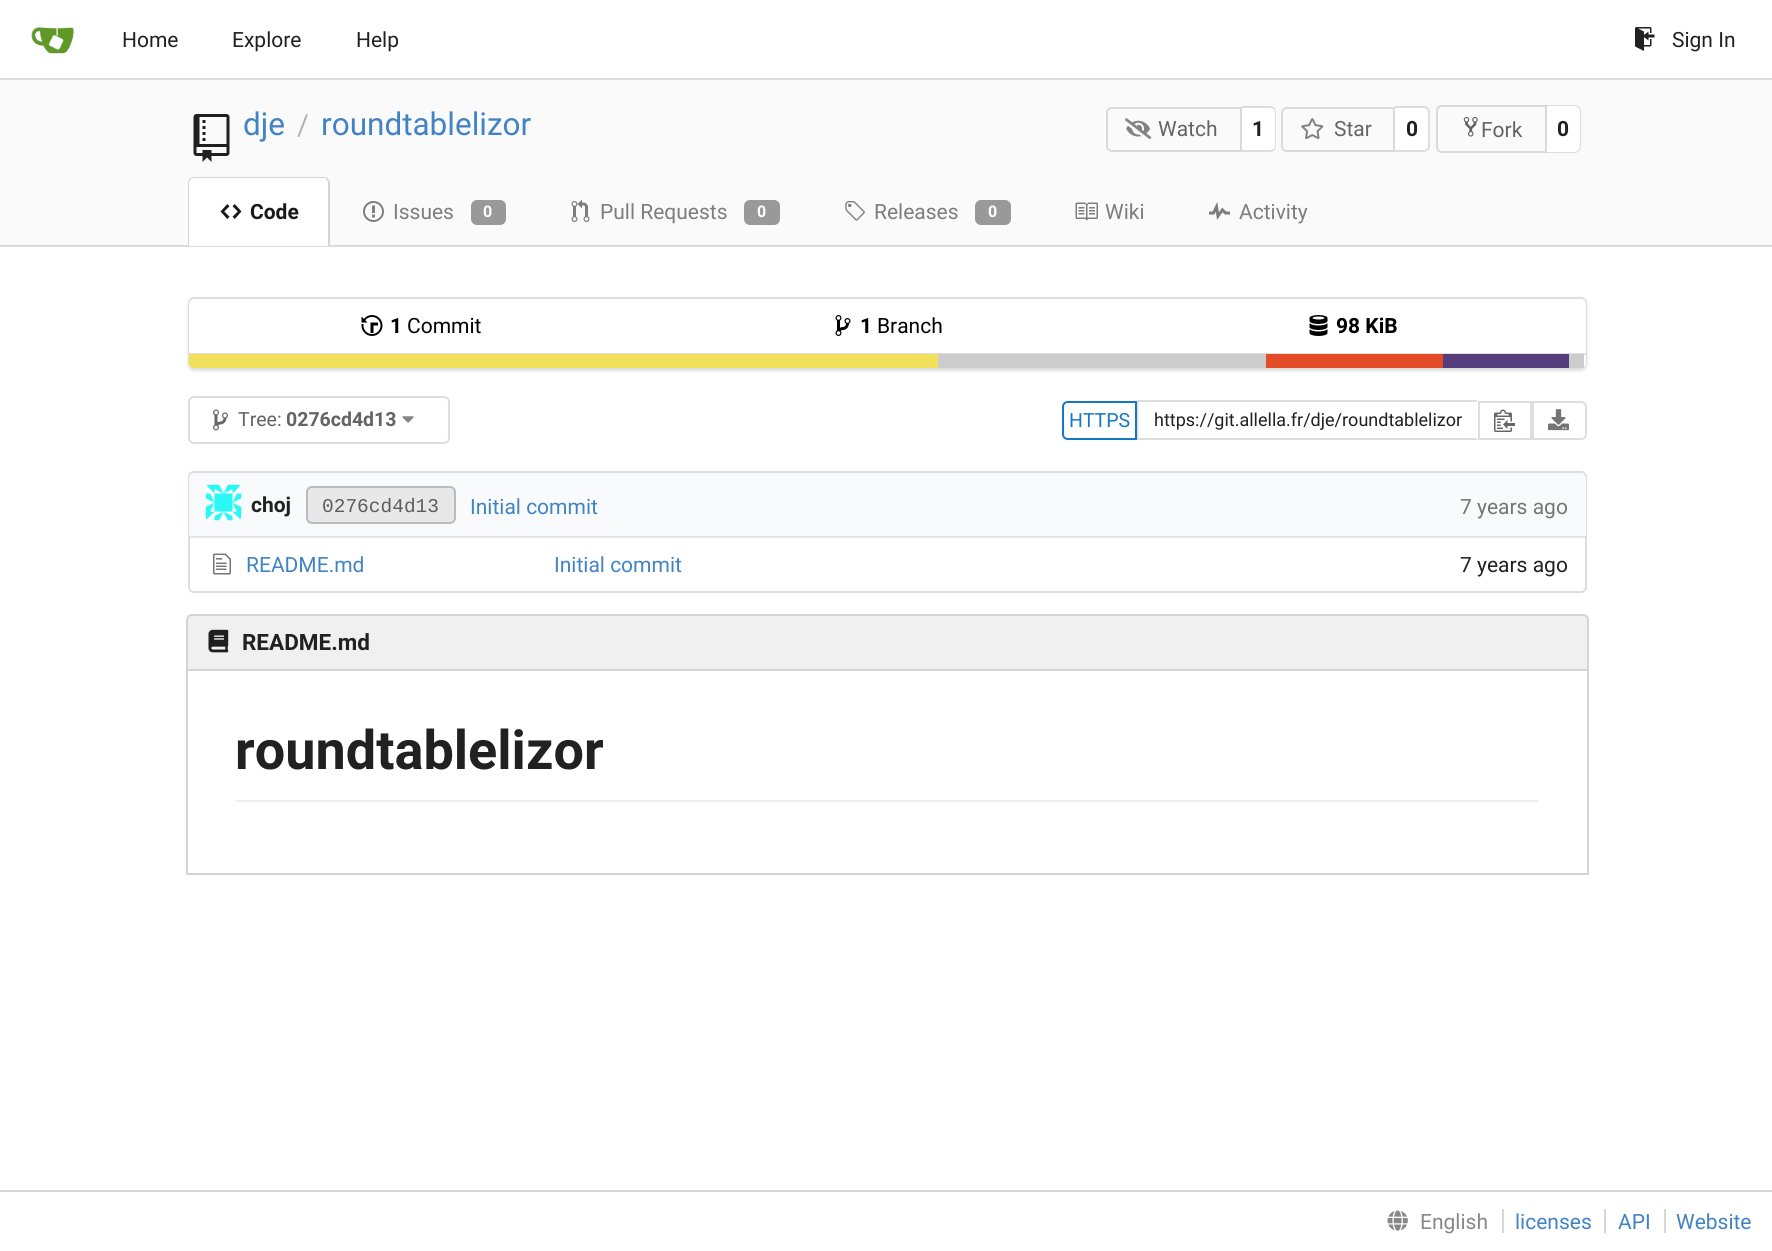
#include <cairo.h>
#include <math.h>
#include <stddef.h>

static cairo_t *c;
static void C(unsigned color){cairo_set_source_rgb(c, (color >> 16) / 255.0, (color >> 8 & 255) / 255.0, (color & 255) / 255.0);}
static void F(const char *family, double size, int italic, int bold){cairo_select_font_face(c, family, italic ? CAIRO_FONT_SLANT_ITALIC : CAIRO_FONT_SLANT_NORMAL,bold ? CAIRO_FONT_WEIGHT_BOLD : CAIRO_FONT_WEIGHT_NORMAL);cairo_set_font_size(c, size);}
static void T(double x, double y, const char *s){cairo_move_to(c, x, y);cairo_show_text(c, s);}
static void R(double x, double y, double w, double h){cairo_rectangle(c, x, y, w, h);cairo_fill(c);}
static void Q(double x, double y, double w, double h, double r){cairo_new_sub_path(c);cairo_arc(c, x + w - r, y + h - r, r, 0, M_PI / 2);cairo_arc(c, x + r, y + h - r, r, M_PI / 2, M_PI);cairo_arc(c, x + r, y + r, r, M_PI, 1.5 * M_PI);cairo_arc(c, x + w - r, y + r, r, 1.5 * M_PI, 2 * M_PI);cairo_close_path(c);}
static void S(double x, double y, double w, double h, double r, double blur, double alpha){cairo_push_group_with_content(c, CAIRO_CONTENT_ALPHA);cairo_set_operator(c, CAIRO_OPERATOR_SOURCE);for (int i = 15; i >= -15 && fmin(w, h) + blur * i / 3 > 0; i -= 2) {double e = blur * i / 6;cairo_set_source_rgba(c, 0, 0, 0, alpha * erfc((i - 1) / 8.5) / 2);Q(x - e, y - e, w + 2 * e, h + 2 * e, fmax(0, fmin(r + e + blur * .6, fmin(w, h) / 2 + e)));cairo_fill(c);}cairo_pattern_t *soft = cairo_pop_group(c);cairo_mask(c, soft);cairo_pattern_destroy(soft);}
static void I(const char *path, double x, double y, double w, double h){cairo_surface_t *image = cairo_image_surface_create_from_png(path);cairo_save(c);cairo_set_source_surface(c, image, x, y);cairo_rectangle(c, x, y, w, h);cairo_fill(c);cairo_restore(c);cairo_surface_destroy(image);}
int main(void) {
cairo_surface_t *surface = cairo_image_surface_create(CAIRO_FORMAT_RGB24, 1772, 1251);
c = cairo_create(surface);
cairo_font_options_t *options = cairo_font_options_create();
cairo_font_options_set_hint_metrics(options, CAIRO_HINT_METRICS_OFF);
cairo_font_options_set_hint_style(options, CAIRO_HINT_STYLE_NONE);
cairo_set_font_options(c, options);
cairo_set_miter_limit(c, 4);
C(0xffffff);
cairo_paint(c);
C(0xdedede);
R(0,246,1772,1);
C(0xdddddd);
R(0,78,1772,2);
I("1.png",31,27,43,27);
F("Roboto",21,0,0);
C(0x212121);
T(122,47,"Home");
T(232,47,"Explore");
T(356,47,"Help");
I("2.png",1635,27,20,24);
T(1672,47,"Sign In");
C(0xfafafa);
R(0,80,1772,165);
C(0xdadada);
R(0,245,1772,1);
I("3.png",193,114,37,48);
F("Roboto",31.5,0,0);
C(0x4183c4);
T(243,135,"dje");
F("Roboto",29,0,0);
C(0xb4b4b4);
T(297,135,"/");
F("Roboto",31.5,0,0);
C(0x4183c4);
T(321,135,"roundtablelizor");
cairo_new_path(c);
cairo_move_to(c,1112,108);
cairo_line_to(c,1241,108);
cairo_line_to(c,1241,151);
cairo_line_to(c,1112,151);
cairo_curve_to(c,1109,151,1107,149,1107,146);
cairo_line_to(c,1107,113);
cairo_curve_to(c,1107,110,1109,108,1112,108);
cairo_close_path(c);
C(0xdadada);
cairo_stroke(c);
I("4.png",1125,118,27,21);
F("Roboto",21,0,0);
C(0x646464);
T(1158,136,"Watch");
C(0xffffff);
cairo_new_path(c);
cairo_move_to(c,1242,107);
cairo_line_to(c,1271,107);
cairo_curve_to(c,1274.5,107,1277,109.5,1277,113);
cairo_line_to(c,1277,146);
cairo_curve_to(c,1277,149.5,1274.5,152,1271,152);
cairo_line_to(c,1242,152);
cairo_close_path(c);
cairo_fill(c);
cairo_set_source_rgba(c,0.133,0.141,0.149,0.15);
cairo_set_fill_rule(c,CAIRO_FILL_RULE_EVEN_ODD);
cairo_new_path(c);
cairo_move_to(c,1242,106);
cairo_line_to(c,1270,106);
cairo_curve_to(c,1274,106,1276,109,1276,112);
cairo_line_to(c,1276,146);
cairo_curve_to(c,1276,149,1274,152,1270,152);
cairo_line_to(c,1242,152);
cairo_close_path(c);
cairo_move_to(c,1242,108);
cairo_line_to(c,1270,108);
cairo_curve_to(c,1273,108,1275,110,1275,112);
cairo_line_to(c,1275,146);
cairo_curve_to(c,1275,148,1273,150,1270,150);
cairo_line_to(c,1242,150);
cairo_close_path(c);
cairo_fill(c);
F("Roboto",21,0,1);
C(0x212121);
T(1252,136,"1");
cairo_new_path(c);
cairo_move_to(c,1287,108);
cairo_line_to(c,1394,108);
cairo_line_to(c,1394,151);
cairo_line_to(c,1287,151);
cairo_curve_to(c,1284,151,1282,149,1282,146);
cairo_line_to(c,1282,113);
cairo_curve_to(c,1282,110,1284,108,1287,108);
cairo_close_path(c);
C(0xdadada);
cairo_stroke(c);
I("5.png",1301,118,23,22);
F("Roboto",21,0,0);
C(0x646464);
T(1334,136,"Star");
C(0xffffff);
cairo_new_path(c);
cairo_move_to(c,1395,107);
cairo_line_to(c,1424,107);
cairo_curve_to(c,1427.5,107,1430,109.5,1430,113);
cairo_line_to(c,1430,146);
cairo_curve_to(c,1430,149.5,1427.5,152,1424,152);
cairo_line_to(c,1395,152);
cairo_close_path(c);
cairo_fill(c);
cairo_set_source_rgba(c,0.133,0.141,0.149,0.15);
cairo_new_path(c);
cairo_move_to(c,1395,106);
cairo_line_to(c,1424,106);
cairo_curve_to(c,1427,106,1430,109,1430,112);
cairo_line_to(c,1430,146);
cairo_curve_to(c,1430,149,1427,152,1424,152);
cairo_line_to(c,1395,152);
cairo_close_path(c);
cairo_move_to(c,1395,108);
cairo_line_to(c,1424,108);
cairo_curve_to(c,1426,108,1428,110,1428,112);
cairo_line_to(c,1428,146);
cairo_curve_to(c,1428,148,1426,150,1424,150);
cairo_line_to(c,1395,150);
cairo_close_path(c);
cairo_fill(c);
F("Roboto",21,0,1);
C(0x212121);
T(1406,136,"0");
cairo_new_path(c);
cairo_move_to(c,1442,106);
cairo_line_to(c,1546,106);
cairo_line_to(c,1546,152);
cairo_line_to(c,1442,152);
cairo_curve_to(c,1439,152,1437,150,1437,147);
cairo_line_to(c,1437,111);
cairo_curve_to(c,1437,108,1439,106,1442,106);
cairo_close_path(c);
C(0xdadada);
cairo_stroke(c);
I("6.png",1463,116,15,21);
F("Roboto",21,0,0);
C(0x646464);
T(1481,137,"Fork");
C(0xffffff);
cairo_new_path(c);
cairo_move_to(c,1547,105);
cairo_line_to(c,1575,105);
cairo_curve_to(c,1578.5,105,1581,107.5,1581,111);
cairo_line_to(c,1581,147);
cairo_curve_to(c,1581,150.5,1578.5,153,1575,153);
cairo_line_to(c,1547,153);
cairo_close_path(c);
cairo_fill(c);
cairo_set_source_rgba(c,0.133,0.141,0.149,0.15);
cairo_new_path(c);
cairo_move_to(c,1546,105);
cairo_line_to(c,1575,105);
cairo_curve_to(c,1578,105,1581,108,1581,111);
cairo_line_to(c,1581,147);
cairo_curve_to(c,1581,150,1578,153,1575,153);
cairo_line_to(c,1546,153);
cairo_close_path(c);
cairo_move_to(c,1546,106);
cairo_line_to(c,1575,106);
cairo_curve_to(c,1577,106,1580,109,1580,111);
cairo_line_to(c,1580,147);
cairo_curve_to(c,1580,149,1577,152,1575,152);
cairo_line_to(c,1546,152);
cairo_close_path(c);
cairo_fill(c);
F("Roboto",21,0,1);
C(0x212121);
T(1557,136,"0");
C(0xffffff);
cairo_new_path(c);
cairo_move_to(c,194,177);
cairo_line_to(c,324,177);
cairo_curve_to(c,327.5,177,330,179.5,330,183);
cairo_line_to(c,330,246);
cairo_line_to(c,188,246);
cairo_line_to(c,188,183);
cairo_curve_to(c,188,179.5,190.5,177,194,177);
cairo_close_path(c);
cairo_fill(c);
C(0xd4d4d5);
cairo_new_path(c);
cairo_move_to(c,194,177);
cairo_line_to(c,324,177);
cairo_curve_to(c,327,177,330,180,330,183);
cairo_line_to(c,330,246);
cairo_line_to(c,188,246);
cairo_line_to(c,188,183);
cairo_curve_to(c,188,180,190,177,194,177);
cairo_close_path(c);
cairo_move_to(c,194,178);
cairo_line_to(c,324,178);
cairo_curve_to(c,326,178,328,181,328,183);
cairo_line_to(c,328,246);
cairo_line_to(c,189,246);
cairo_line_to(c,189,183);
cairo_curve_to(c,189,181,191,178,194,178);
cairo_close_path(c);
cairo_fill(c);
I("7.png",220,204,22,15);
C(0x1a1a1a);
T(250,219,"Code");
I("8.png",363,201,21,21);
F("Roboto",21,0,0);
C(0x7d7d7d);
T(393,219,"Issues");
C(0x999999);
Q(471,200,35,25,6);
cairo_fill(c);
F("Roboto",16,0,1);
C(0xffffff);
T(483,217,"0");
I("9.png",571,200,19,22);
F("Roboto",21,0,0);
C(0x7d7d7d);
T(600,219,"Pull Requests");
C(0x999999);
Q(744,200,36,25,6);
cairo_fill(c);
F("Roboto",16,0,1);
C(0xffffff);
T(757,217,"0");
I("10.png",845,201,20,20);
F("Roboto",21,0,0);
C(0x7d7d7d);
T(874,219,"Releases");
C(0x999999);
Q(975,200,36,25,6);
cairo_fill(c);
F("Roboto",16,0,1);
C(0xffffff);
T(988,217,"0");
I("11.png",1075,202,23,19);
F("Roboto",21,0,0);
C(0x7d7d7d);
T(1105,219,"Wiki");
I("12.png",1209,202,21,18);
T(1239,219,"Activity");
cairo_save(c);
cairo_new_path(c);
cairo_move_to(c,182,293);
cairo_line_to(c,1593,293);
cairo_line_to(c,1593,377);
cairo_line_to(c,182,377);
cairo_close_path(c);
cairo_move_to(c,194,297);
cairo_line_to(c,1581,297);
cairo_curve_to(c,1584.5,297,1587,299.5,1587,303);
cairo_line_to(c,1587,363);
cairo_curve_to(c,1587,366.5,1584.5,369,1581,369);
cairo_line_to(c,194,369);
cairo_curve_to(c,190.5,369,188,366.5,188,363);
cairo_line_to(c,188,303);
cairo_curve_to(c,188,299.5,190.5,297,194,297);
cairo_close_path(c);
cairo_clip(c);
C(0x222426);
S(188,299,1399,72,6,1.5,.15);
cairo_restore(c);
Q(189,298,1397,70,5);
cairo_set_source_rgba(c,0.133,0.141,0.149,0.15);
cairo_stroke(c);
cairo_save(c);
cairo_set_fill_rule(c,CAIRO_FILL_RULE_WINDING);
Q(189,299,1397,69,5);
cairo_clip(c);
C(0xffffff);
cairo_new_path(c);
cairo_move_to(c,195,299);
cairo_line_to(c,1580,299);
cairo_curve_to(c,1583.5,299,1586,301.5,1586,305);
cairo_line_to(c,1586,353);
cairo_line_to(c,189,353);
cairo_line_to(c,189,305);
cairo_curve_to(c,189,301.5,191.5,299,195,299);
cairo_close_path(c);
cairo_fill(c);
cairo_restore(c);
I("13.png",361,315,22,21);
F("Roboto",21,0,1);
C(0x000000);
T(390,333,"1");
F("Roboto",21,0,0);
T(407,333,"Commit");
I("14.png",835,315,16,21);
F("Roboto",21,0,1);
T(860,333,"1");
F("Roboto",21,0,0);
T(877,333,"Branch");
I("15.png",1309,315,19,21);
F("Roboto",21,0,1);
T(1336,333,"98 KiB");
cairo_save(c);
cairo_set_fill_rule(c,CAIRO_FILL_RULE_WINDING);
Q(189,299,1397,69,5);
cairo_clip(c);
C(0xffffff);
cairo_new_path(c);
cairo_move_to(c,189,353);
cairo_line_to(c,1586,353);
cairo_line_to(c,1586,363);
cairo_curve_to(c,1586,366.5,1583.5,369,1580,369);
cairo_line_to(c,195,369);
cairo_curve_to(c,191.5,369,189,366.5,189,363);
cairo_close_path(c);
cairo_fill(c);
cairo_restore(c);
C(0xdedede);
R(189,353,1397,2);
C(0xf1e05a);
cairo_new_path(c);
cairo_move_to(c,189,354);
cairo_line_to(c,938,354);
cairo_line_to(c,938,368);
cairo_line_to(c,194,368);
cairo_curve_to(c,191,368,189,366,189,363);
cairo_close_path(c);
cairo_fill(c);
C(0xcccccc);
R(938,354,328,14);
C(0xe34c26);
R(1266,354,177,14);
C(0x563d7c);
R(1443,354,126,14);
C(0xcccccc);
R(1569,354,15,14);
Q(189,397,260,46,5);
C(0xdedede);
cairo_stroke(c);
I("16.png",213,409,15,22);
F("Roboto",19.5,0,0);
C(0x646464);
T(238,426,"Tree:");
F("Roboto",19.5,0,1);
T(286,426,"0276cd4d13");
I("17.png",402,416,12,7);
cairo_new_path(c);
cairo_move_to(c,1068,402);
cairo_line_to(c,1136,402);
cairo_line_to(c,1136,439);
cairo_line_to(c,1068,439);
cairo_curve_to(c,1065,439,1063,437,1063,434);
cairo_line_to(c,1063,407);
cairo_curve_to(c,1063,404,1065,402,1068,402);
cairo_close_path(c);
C(0x1678c2);
cairo_stroke(c);
F("Roboto",19.5,0,0);
T(1069,427,"HTTPS");
C(0xdedede);
cairo_set_fill_rule(c,CAIRO_FILL_RULE_WINDING);
cairo_new_path(c);
cairo_move_to(c,1137,400);
cairo_line_to(c,1478,400);
cairo_line_to(c,1476,402);
cairo_line_to(c,1138,402);
cairo_close_path(c);
cairo_fill(c);
cairo_new_path(c);
cairo_move_to(c,1478,440);
cairo_line_to(c,1137,440);
cairo_line_to(c,1138,438);
cairo_line_to(c,1476,438);
cairo_close_path(c);
cairo_fill(c);
cairo_set_source_rgba(c,0.133,0.141,0.149,0.15);
cairo_new_path(c);
cairo_move_to(c,1137,439.5);
cairo_line_to(c,1137,400.5);
cairo_line_to(c,1138.5,402);
cairo_line_to(c,1138.5,438);
cairo_close_path(c);
cairo_fill(c);
F("Roboto",18,0,0);
C(0x212121);
T(1154,426,"https://git.allella.fr/dje/roundtablelizor");
cairo_rectangle(c,1479,402,52,37);
C(0xdedede);
cairo_stroke(c);
I("18.png",1494,409,21,23);
cairo_new_path(c);
cairo_move_to(c,1533,402);
cairo_line_to(c,1581,402);
cairo_curve_to(c,1584,402,1586,404,1586,407);
cairo_line_to(c,1586,434);
cairo_curve_to(c,1586,437,1584,439,1581,439);
cairo_line_to(c,1533,439);
cairo_close_path(c);
cairo_stroke(c);
I("19.png",1548,409,21,22);
Q(189,472,1397,120,5);
cairo_stroke(c);
C(0xf9fafb);
cairo_new_path(c);
cairo_move_to(c,195,473);
cairo_line_to(c,1323,473);
cairo_line_to(c,1323,537);
cairo_line_to(c,189,537);
cairo_line_to(c,189,479);
cairo_curve_to(c,189,475.5,191.5,473,195,473);
cairo_close_path(c);
cairo_fill(c);
cairo_set_source_rgba(c,0.133,0.141,0.149,0.1);
R(189,536,1134,2);
I("20.png",205,484,37,37);
F("Roboto",21,0,1);
C(0x212121);
T(251,512,"choj");
C(0xe8e8e8);
Q(307,487,148,36,5);
cairo_fill_preserve(c);
C(0xbbbbbb);
cairo_stroke(c);
F("Liberation Mono",19.5,0,0);
C(0x5d5d5d);
T(322,512,"0276cd4d13");
F("Roboto",21,0,0);
C(0x4183c4);
T(470,514,"Initial commit");
C(0xf9fafb);
cairo_new_path(c);
cairo_move_to(c,1323,473);
cairo_line_to(c,1580,473);
cairo_curve_to(c,1583.5,473,1586,475.5,1586,479);
cairo_line_to(c,1586,537);
cairo_line_to(c,1323,537);
cairo_close_path(c);
cairo_fill(c);
cairo_set_source_rgba(c,0.133,0.141,0.149,0.1);
R(1323,536,263,2);
C(0x767676);
T(1460,514,"7 years ago");
I("21.png",213,553,18,22);
C(0x4183c4);
T(246,572,"README.md");
T(554,572,"Initial commit");
C(0x212121);
T(1460,572,"7 years ago");
C(0xf0f0f0);
cairo_new_path(c);
cairo_move_to(c,192,615);
cairo_line_to(c,1583,615);
cairo_curve_to(c,1586,615,1588,617,1588,620);
cairo_line_to(c,1588,670);
cairo_line_to(c,187,670);
cairo_line_to(c,187,620);
cairo_curve_to(c,187,617,189,615,192,615);
cairo_close_path(c);
cairo_fill_preserve(c);
C(0xd4d4d5);
cairo_stroke(c);
I("22.png",208,629,21,24);
F("Roboto",22.5,0,1);
C(0x212121);
T(242,650,"README.md");
C(0xd4d4d5);
R(1587,671,2,204);
R(186,873,1403,2);
R(186,671,2,204);
C(0xeeeeee);
R(236,800,1303,2);
F("Roboto",54,0,1);
C(0x212121);
T(235,769,"roundtablelizor");
C(0xd6d6d6);
R(0,1190,1772,2);
I("23.png",1387,1210,21,21);
F("Roboto",21,0,0);
C(0x888888);
T(1420,1229,"English");
C(0x4183c4);
T(1515,1229,"licenses");
C(0xd6d6d6);
R(1502,1209,2,24);
C(0x4183c4);
T(1618,1229,"API");
C(0xd6d6d6);
R(1604,1209,2,24);
C(0x4183c4);
T(1676,1229,"Website");
C(0xd6d6d6);
R(1664,1209,2,24);
cairo_surface_write_to_png(surface, "o.png");
cairo_font_options_destroy(options);
cairo_destroy(c);
cairo_surface_destroy(surface);
return 0;
}
